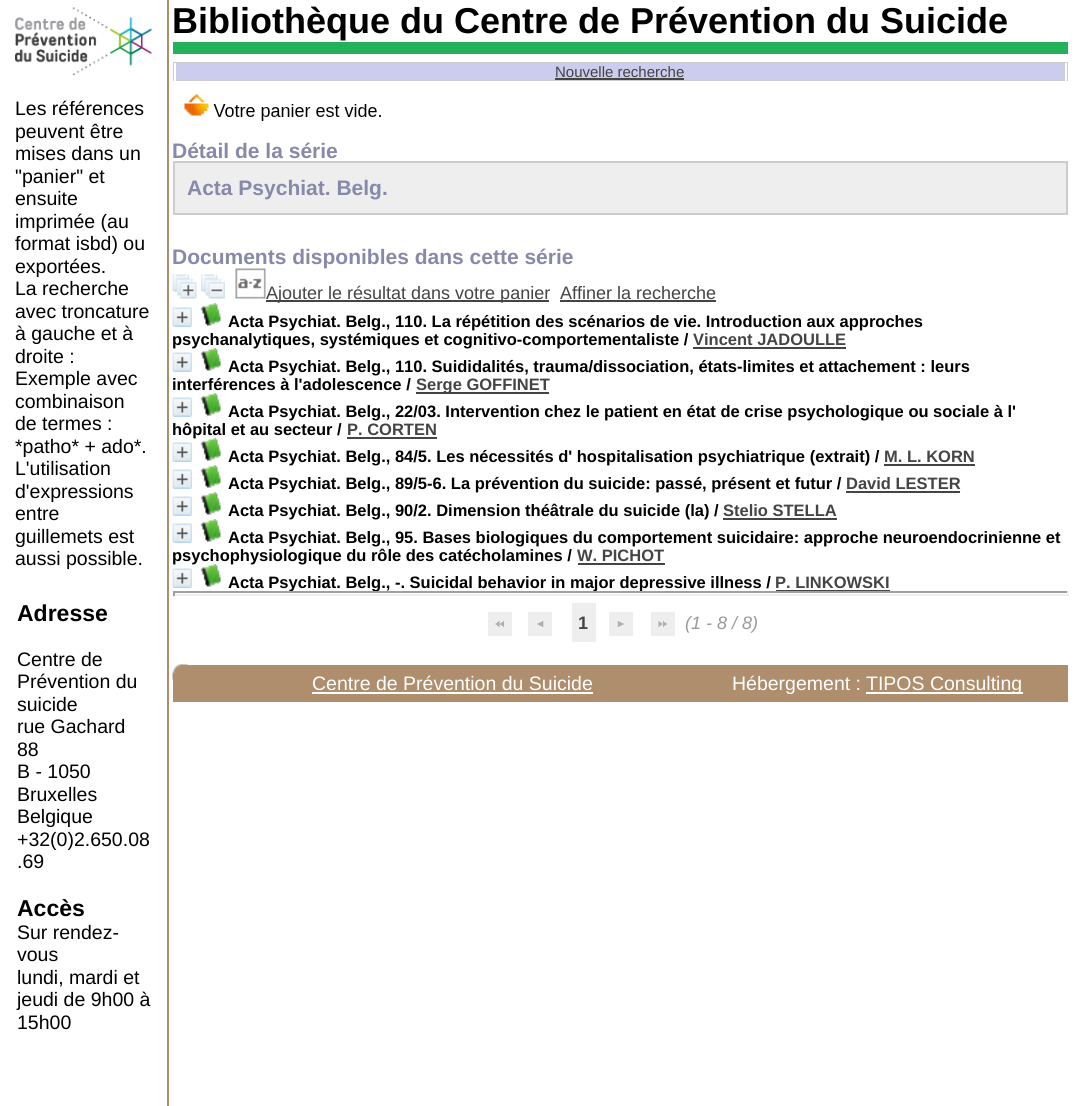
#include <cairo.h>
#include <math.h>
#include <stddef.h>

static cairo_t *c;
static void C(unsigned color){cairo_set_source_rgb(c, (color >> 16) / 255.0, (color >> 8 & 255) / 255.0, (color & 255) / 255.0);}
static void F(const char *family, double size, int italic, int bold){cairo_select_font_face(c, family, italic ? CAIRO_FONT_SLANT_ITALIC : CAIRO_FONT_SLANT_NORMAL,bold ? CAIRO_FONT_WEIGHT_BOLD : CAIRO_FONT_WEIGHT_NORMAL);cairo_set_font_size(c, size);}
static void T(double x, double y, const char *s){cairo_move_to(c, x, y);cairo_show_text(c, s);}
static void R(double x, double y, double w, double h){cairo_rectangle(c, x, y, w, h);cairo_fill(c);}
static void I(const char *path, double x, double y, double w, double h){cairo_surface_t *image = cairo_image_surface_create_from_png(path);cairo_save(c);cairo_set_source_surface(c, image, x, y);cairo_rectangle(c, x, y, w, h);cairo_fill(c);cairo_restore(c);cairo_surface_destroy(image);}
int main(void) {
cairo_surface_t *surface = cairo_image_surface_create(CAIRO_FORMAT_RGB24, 1088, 1106);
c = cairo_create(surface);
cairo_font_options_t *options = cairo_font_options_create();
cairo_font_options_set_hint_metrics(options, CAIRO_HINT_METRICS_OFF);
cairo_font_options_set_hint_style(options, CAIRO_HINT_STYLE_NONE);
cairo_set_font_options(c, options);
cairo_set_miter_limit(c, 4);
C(0xffffff);
cairo_paint(c);
C(0xaf8e6d);
R(167,0,2,1106);
I("1.png",15,7,137,68);
F("Liberation Sans",19.5,0,0);
C(0x000000);
T(15,115,"Les références");
T(15,138,"peuvent être");
T(15,160,"mises dans un");
T(15,183,"\"panier\" et");
T(15,205,"ensuite");
T(15,228,"imprimée (au");
T(15,250,"format isbd) ou");
T(15,273,"exportées.");
T(15,295,"La recherche");
T(15,318,"avec troncature");
T(15,340,"à gauche et à");
T(15,363,"droite :");
T(15,385,"Exemple avec");
T(15,408,"combinaison");
T(15,430,"de termes :");
T(15,453,"*patho* + ado*.");
T(15,475,"L'utilisation");
T(15,498,"d'expressions");
T(15,520,"entre");
T(15,543,"guillemets est");
T(15,565,"aussi possible.");
F("Liberation Sans",36,0,1);
T(172,33,"Bibliothèque du Centre de Prévention du Suicide");
C(0x23b25a);
R(173,42,895,12);
cairo_rectangle(c,174,63,893,17);
C(0xcccccc);
cairo_stroke(c);
C(0xccccee);
R(176,63,889,17);
C(0xffffff);
R(1065,63,2,18);
R(174,63,2,18);
F("Liberation Sans",15,0,0);
C(0x444444);
T(555,77,"Nouvelle recherche");
R(555,78,129,2);
I("2.png",184,94,197,27);
F("Liberation Sans",21,0,1);
C(0x8888aa);
T(172,158,"Détail de la série");
C(0xeeeeee);
cairo_rectangle(c,174,162,893,52);
cairo_fill_preserve(c);
C(0xcccccc);
cairo_stroke(c);
C(0x8888aa);
T(187,195,"Acta Psychiat. Belg.");
T(172,264,"Documents disponibles dans cette série");
I("3.png",172,274,25,25);
I("4.png",201,274,24,25);
I("5.png",235,268,31,31);
C(0x444444);
R(266,300,283,2);
F("Liberation Sans",18,0,0);
T(266,299,"Ajouter le résultat dans votre panier");
T(560,299,"Affiner la recherche");
R(560,300,156,2);
I("6.png",172,307,20,20);
I("7.png",200,303,21,23);
F("Liberation Sans",16.5,0,1);
C(0x000000);
T(228,327,"Acta Psychiat. Belg., 110. La répétition des scénarios de vie. Introduction aux approches");
T(172,345,"psychanalytiques, systémiques et cognitivo-comportementaliste /");
C(0x444444);
T(693,345,"Vincent JADOULLE");
R(693,347,153,2);
I("6.png",172,352,20,20);
I("7.png",200,348,21,23);
C(0x000000);
T(228,372,"Acta Psychiat. Belg., 110. Suididalités, trauma/dissociation, états-limites et attachement : leurs");
T(172,390,"interférences à l'adolescence /");
C(0x444444);
R(416,392,133,2);
T(416,390,"Serge GOFFINET");
I("6.png",172,397,20,20);
I("7.png",200,393,21,23);
C(0x000000);
T(228,417,"Acta Psychiat. Belg., 22/03. Intervention chez le patient en état de crise psychologique ou sociale à l'");
T(172,435,"hôpital et au secteur /");
C(0x444444);
T(347,435,"P. CORTEN");
R(347,437,90,2);
I("6.png",172,442,20,20);
I("7.png",200,438,21,23);
C(0x000000);
T(228,462,"Acta Psychiat. Belg., 84/5. Les nécessités d' hospitalisation psychiatrique (extrait) /");
C(0x444444);
T(884,462,"M. L. KORN");
R(884,464,91,2);
I("6.png",172,469,20,20);
I("7.png",200,465,21,23);
C(0x000000);
T(228,489,"Acta Psychiat. Belg., 89/5-6. La prévention du suicide: passé, présent et futur /");
C(0x444444);
T(846,489,"David LESTER");
R(846,491,114,2);
I("6.png",172,496,20,20);
I("7.png",200,492,21,23);
C(0x000000);
T(228,516,"Acta Psychiat. Belg., 90/2. Dimension théâtrale du suicide (la) /");
C(0x444444);
T(723,516,"Stelio STELLA");
R(723,518,114,2);
I("6.png",172,523,20,20);
I("7.png",200,519,21,23);
C(0x000000);
T(228,543,"Acta Psychiat. Belg., 95. Bases biologiques du comportement suicidaire: approche neuroendocrinienne et");
T(172,561,"psychophysiologique du rôle des catécholamines /");
C(0x444444);
T(577,561,"W. PICHOT");
R(578,563,87,2);
I("6.png",172,568,20,20);
I("7.png",200,564,21,23);
C(0x000000);
T(228,588,"Acta Psychiat. Belg., -. Suicidal behavior in major depressive illness /");
C(0x444444);
T(775,588,"P. LINKOWSKI");
R(776,590,114,1);
C(0x9f9f9f);
R(173,591,895,2);
C(0xeeeeee);
R(1067,591,2,5);
R(173,594,895,2);
C(0x9f9f9f);
R(173,591,2,5);
C(0xeeeeee);
R(488,612,24,24);
I("8.png",495,620,9,8);
R(528,612,24,24);
I("9.png",537,621,7,6);
R(572,603,24,39);
F("Liberation Sans",18,0,1);
C(0x444444);
T(578,629,"1");
C(0xeeeeee);
R(609,612,24,24);
I("10.png",617,621,7,6);
R(651,612,24,24);
I("11.png",658,621,9,6);
F("Liberation Sans",18,1,0);
C(0x999999);
T(685,629,"(1 - 8 / 8)");
C(0xaf8e6d);
R(173,665,895,37);
I("12.png",172,664,16,16);
F("Liberation Sans",19.5,0,0);
C(0xffffff);
T(312,690,"Centre de Prévention du Suicide");
R(312,692,281,2);
T(732,690,"Hébergement :");
R(866,692,157,2);
T(866,690,"TIPOS Consulting");
F("Liberation Sans",23,0,1);
C(0x000000);
T(17,621,"Adresse");
F("Liberation Sans",19.5,0,0);
T(17,666,"Centre de");
T(17,688,"Prévention du");
T(17,711,"suicide");
T(17,733,"rue Gachard");
T(17,756,"88");
T(17,778,"B - 1050");
T(17,801,"Bruxelles");
T(17,823,"Belgique");
T(17,846,"+32(0)2.650.08");
T(17,868,".69");
F("Liberation Sans",23,0,1);
T(17,916,"Accès");
F("Liberation Sans",19.5,0,0);
T(17,939,"Sur rendez-");
T(17,961,"vous");
T(17,984,"lundi, mardi et");
T(17,1006,"jeudi de 9h00 à");
T(17,1029,"15h00");
cairo_surface_write_to_png(surface, "o.png");
cairo_font_options_destroy(options);
cairo_destroy(c);
cairo_surface_destroy(surface);
return 0;
}
